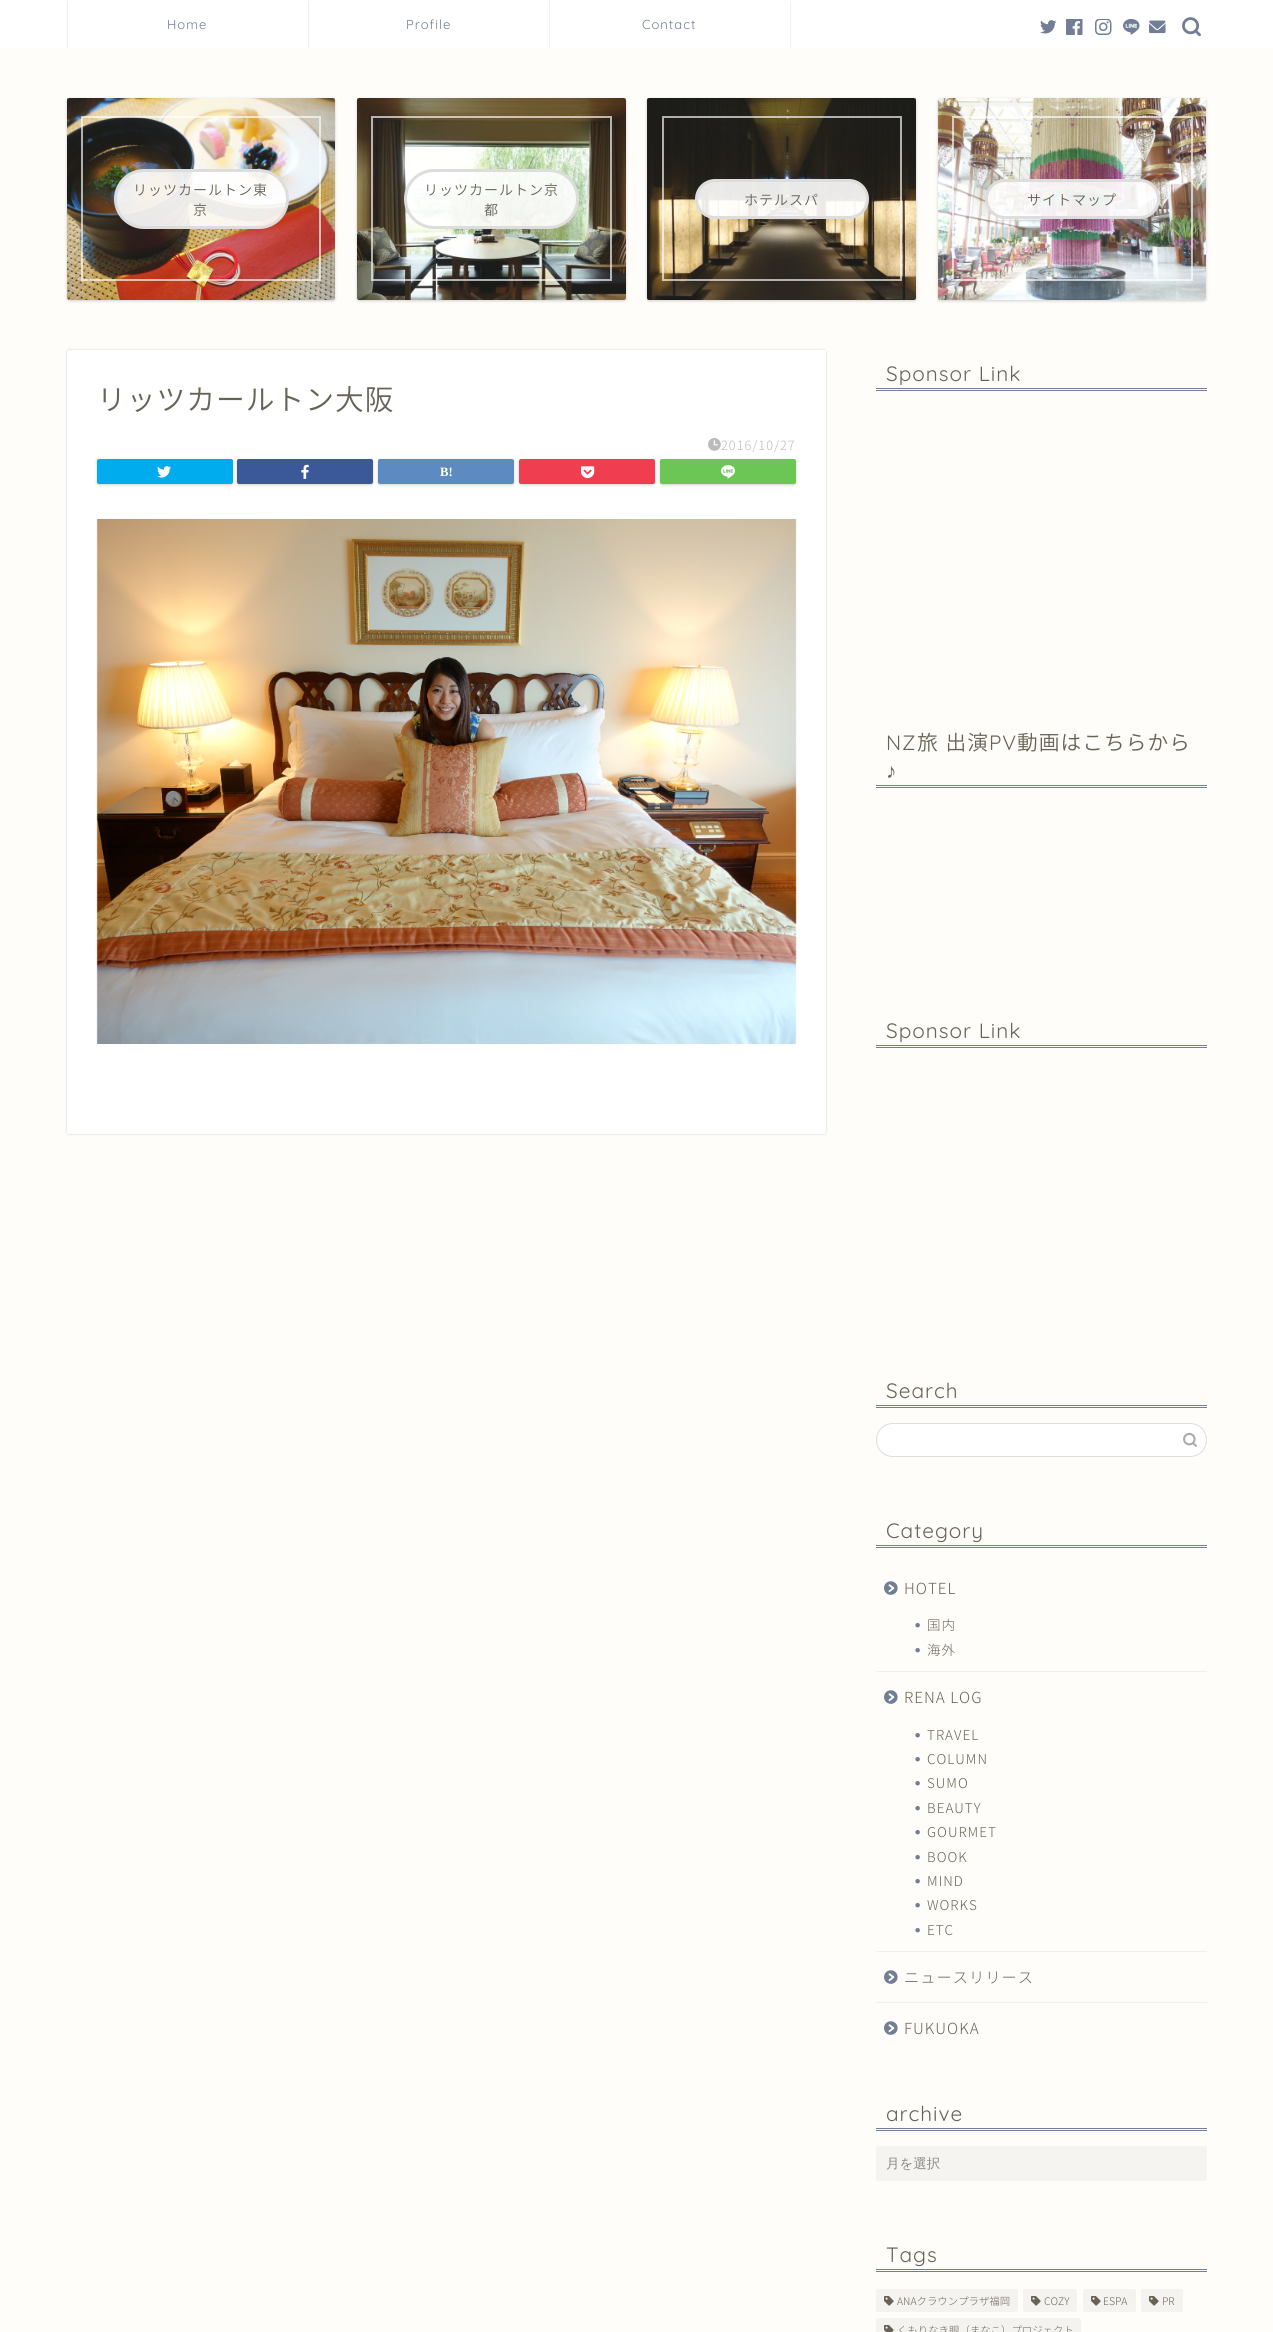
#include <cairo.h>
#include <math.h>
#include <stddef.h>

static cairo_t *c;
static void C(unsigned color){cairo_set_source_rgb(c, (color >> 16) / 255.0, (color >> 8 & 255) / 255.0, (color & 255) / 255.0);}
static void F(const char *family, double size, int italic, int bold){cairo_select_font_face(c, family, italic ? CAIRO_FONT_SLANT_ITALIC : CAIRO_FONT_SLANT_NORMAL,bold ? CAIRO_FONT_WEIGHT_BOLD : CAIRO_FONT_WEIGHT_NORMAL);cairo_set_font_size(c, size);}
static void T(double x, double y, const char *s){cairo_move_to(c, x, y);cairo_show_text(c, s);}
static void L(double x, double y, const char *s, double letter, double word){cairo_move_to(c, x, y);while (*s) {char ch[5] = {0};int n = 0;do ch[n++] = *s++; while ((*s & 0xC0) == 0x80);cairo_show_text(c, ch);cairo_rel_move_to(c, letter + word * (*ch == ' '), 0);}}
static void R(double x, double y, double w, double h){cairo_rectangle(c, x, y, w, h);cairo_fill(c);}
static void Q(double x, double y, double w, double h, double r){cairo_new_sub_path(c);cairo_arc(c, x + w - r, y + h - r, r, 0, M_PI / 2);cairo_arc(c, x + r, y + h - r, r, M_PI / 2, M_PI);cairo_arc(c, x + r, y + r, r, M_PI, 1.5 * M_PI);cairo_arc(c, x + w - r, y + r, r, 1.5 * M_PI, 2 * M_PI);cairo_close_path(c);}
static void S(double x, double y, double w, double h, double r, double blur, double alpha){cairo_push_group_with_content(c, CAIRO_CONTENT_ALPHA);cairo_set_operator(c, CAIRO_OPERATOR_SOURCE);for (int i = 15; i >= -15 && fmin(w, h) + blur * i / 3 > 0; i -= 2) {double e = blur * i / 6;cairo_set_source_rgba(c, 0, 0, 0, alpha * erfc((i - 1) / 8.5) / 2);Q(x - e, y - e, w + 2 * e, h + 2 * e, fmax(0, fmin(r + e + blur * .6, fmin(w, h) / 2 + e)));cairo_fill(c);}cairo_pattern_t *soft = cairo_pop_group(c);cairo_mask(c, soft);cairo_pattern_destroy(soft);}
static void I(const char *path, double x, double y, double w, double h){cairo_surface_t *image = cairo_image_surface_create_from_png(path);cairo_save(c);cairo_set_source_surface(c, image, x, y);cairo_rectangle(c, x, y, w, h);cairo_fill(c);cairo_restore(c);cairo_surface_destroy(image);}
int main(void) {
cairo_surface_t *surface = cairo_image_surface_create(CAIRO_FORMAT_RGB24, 1273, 2332);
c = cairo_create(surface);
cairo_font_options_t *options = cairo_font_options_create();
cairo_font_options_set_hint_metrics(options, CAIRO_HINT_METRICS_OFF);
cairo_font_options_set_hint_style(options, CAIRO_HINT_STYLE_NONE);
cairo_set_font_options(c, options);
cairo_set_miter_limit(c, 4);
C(0xfffdf9);
cairo_paint(c);
C(0xffffff);
R(0,0,1273,48);
C(0xefefef);
cairo_new_path(c);
cairo_move_to(c,67,48);
cairo_line_to(c,67,0);
cairo_line_to(c,68,2);
cairo_line_to(c,68,48);
cairo_close_path(c);
cairo_fill(c);
F("Quicksand Light",13,0,0);
C(0x717e95);
L(167,29,"Home",1,0);
C(0xefefef);
cairo_new_path(c);
cairo_move_to(c,308,48);
cairo_line_to(c,308,0);
cairo_line_to(c,309,2);
cairo_line_to(c,309,48);
cairo_close_path(c);
cairo_fill(c);
C(0x717e95);
L(406,29,"Profile",1,0);
C(0xefefef);
cairo_new_path(c);
cairo_move_to(c,791,0);
cairo_line_to(c,791,48);
cairo_line_to(c,790,48);
cairo_line_to(c,790,2);
cairo_close_path(c);
cairo_fill(c);
cairo_new_path(c);
cairo_move_to(c,549,48);
cairo_line_to(c,549,0);
cairo_line_to(c,550,2);
cairo_line_to(c,550,48);
cairo_close_path(c);
cairo_fill(c);
C(0x717e95);
L(642,29,"Contact",1,0);
I("1.png",1040,20,17,14);
I("2.png",1066,19,17,16);
I("3.png",1095,19,17,16);
I("4.png",1123,19,17,16);
I("5.png",1149,20,17,14);
I("6.png",1182,17,19,20);
cairo_save(c);
cairo_set_fill_rule(c,CAIRO_FILL_RULE_EVEN_ODD);
cairo_new_path(c);
cairo_move_to(c,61,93);
cairo_line_to(c,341,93);
cairo_line_to(c,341,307);
cairo_line_to(c,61,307);
cairo_close_path(c);
cairo_move_to(c,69,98);
cairo_line_to(c,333,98);
cairo_curve_to(c,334,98,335,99,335,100);
cairo_line_to(c,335,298);
cairo_curve_to(c,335,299,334,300,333,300);
cairo_line_to(c,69,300);
cairo_curve_to(c,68,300,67,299,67,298);
cairo_line_to(c,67,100);
cairo_curve_to(c,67,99,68,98,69,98);
cairo_close_path(c);
cairo_clip(c);
C(0x000000);
S(67,99,268,202,2,1.5,.18);
cairo_restore(c);
I("7.png",67,98,268,202);
cairo_rectangle(c,82,117,238,163);
cairo_set_source_rgba(c,1,1,1,0.65);
cairo_stroke(c);
cairo_set_source_rgba(c,1,1,1,0.9);
Q(115.5,170.5,172,57,28.5);
cairo_fill_preserve(c);
C(0xdddddd);
cairo_set_line_width(c,3);
cairo_stroke(c);
F("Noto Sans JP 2 Light",14,0,0);
C(0x686357);
L(133,195,"リッツカールトン東",1,0);
L(193,215,"京",1,0);
cairo_save(c);
cairo_set_fill_rule(c,CAIRO_FILL_RULE_EVEN_ODD);
cairo_new_path(c);
cairo_move_to(c,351,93);
cairo_line_to(c,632,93);
cairo_line_to(c,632,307);
cairo_line_to(c,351,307);
cairo_close_path(c);
cairo_move_to(c,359,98);
cairo_line_to(c,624,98);
cairo_curve_to(c,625,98,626,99,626,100);
cairo_line_to(c,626,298);
cairo_curve_to(c,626,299,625,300,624,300);
cairo_line_to(c,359,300);
cairo_curve_to(c,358,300,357,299,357,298);
cairo_line_to(c,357,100);
cairo_curve_to(c,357,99,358,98,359,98);
cairo_close_path(c);
cairo_clip(c);
C(0x000000);
S(357,99,269,202,2,1.5,.18);
cairo_restore(c);
I("8.png",357,98,269,202);
cairo_rectangle(c,372,117,239,163);
cairo_set_source_rgba(c,1,1,1,0.65);
cairo_set_line_width(c,2);
cairo_stroke(c);
cairo_set_source_rgba(c,1,1,1,0.9);
Q(405.5,170.5,172,57,28.5);
cairo_fill_preserve(c);
C(0xdddddd);
cairo_set_line_width(c,3);
cairo_stroke(c);
C(0x686357);
L(424,195,"リッツカールトン京",1,0);
L(484,215,"都",1,0);
cairo_save(c);
cairo_set_fill_rule(c,CAIRO_FILL_RULE_EVEN_ODD);
cairo_new_path(c);
cairo_move_to(c,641,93);
cairo_line_to(c,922,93);
cairo_line_to(c,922,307);
cairo_line_to(c,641,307);
cairo_close_path(c);
cairo_move_to(c,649,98);
cairo_line_to(c,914,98);
cairo_curve_to(c,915,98,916,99,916,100);
cairo_line_to(c,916,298);
cairo_curve_to(c,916,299,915,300,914,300);
cairo_line_to(c,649,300);
cairo_curve_to(c,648,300,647,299,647,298);
cairo_line_to(c,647,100);
cairo_curve_to(c,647,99,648,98,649,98);
cairo_close_path(c);
cairo_clip(c);
C(0x000000);
S(647,99,269,202,2,1.5,.18);
cairo_restore(c);
I("9.png",647,98,269,202);
cairo_rectangle(c,663,117,238,163);
cairo_set_source_rgba(c,1,1,1,0.65);
cairo_set_line_width(c,2);
cairo_stroke(c);
cairo_set_source_rgba(c,1,1,1,0.9);
Q(696.5,180.5,171,37,18.5);
cairo_fill_preserve(c);
C(0xdddddd);
cairo_set_line_width(c,3);
cairo_stroke(c);
C(0x686357);
L(744,205,"ホテルスパ",1,0);
cairo_save(c);
cairo_set_fill_rule(c,CAIRO_FILL_RULE_EVEN_ODD);
cairo_new_path(c);
cairo_move_to(c,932,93);
cairo_line_to(c,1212,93);
cairo_line_to(c,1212,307);
cairo_line_to(c,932,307);
cairo_close_path(c);
cairo_move_to(c,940,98);
cairo_line_to(c,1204,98);
cairo_curve_to(c,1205,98,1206,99,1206,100);
cairo_line_to(c,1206,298);
cairo_curve_to(c,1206,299,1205,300,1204,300);
cairo_line_to(c,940,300);
cairo_curve_to(c,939,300,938,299,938,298);
cairo_line_to(c,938,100);
cairo_curve_to(c,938,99,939,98,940,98);
cairo_close_path(c);
cairo_clip(c);
C(0x000000);
S(938,99,268,202,2,1.5,.18);
cairo_restore(c);
I("10.png",938,98,268,202);
cairo_rectangle(c,953,117,239,163);
cairo_set_source_rgba(c,1,1,1,0.65);
cairo_set_line_width(c,2);
cairo_stroke(c);
cairo_set_source_rgba(c,1,1,1,0.9);
Q(986.5,180.5,172,37,18.5);
cairo_fill_preserve(c);
C(0xdddddd);
cairo_set_line_width(c,3);
cairo_stroke(c);
C(0x686357);
L(1027,205,"サイトマップ",1,0);
C(0x000000);
S(67,350,759,784,2,1,.18);
C(0xffffff);
Q(67,350,759,784,2);
cairo_fill(c);
F("Noto Sans JP 2 Light",28.75,0,0);
C(0x686357);
L(97,410,"リッツカールトン大阪",1,0);
I("11.png",708,438,13,13);
F("Noto Sans JP Light",12.75,0,0);
C(0xbbbbbb);
L(721,450,"2016/10/27",1,0);
C(0x000000);
S(97,460,136,25,2,1.5,.18);
C(0x00acee);
Q(98,460,134,23,1);
cairo_fill_preserve(c);
cairo_set_line_width(c,2);
cairo_stroke(c);
I("12.png",157,466,14,12);
C(0x000000);
S(237,460,136,25,2,1.5,.18);
C(0x3b5998);
Q(238,460,134,23,1);
cairo_fill_preserve(c);
cairo_stroke(c);
I("13.png",301,464,8,15);
C(0x000000);
S(378,460,136,25,2,1.5,.18);
C(0x5d8ac1);
Q(379,460,134,23,1);
cairo_fill_preserve(c);
cairo_stroke(c);
F("Liberation Serif",12.75,0,1);
C(0xffffff);
T(440,476,"B!");
C(0x000000);
S(519,460,136,25,2,1.5,.18);
C(0xf03e51);
Q(520,460,134,23,1);
cairo_fill_preserve(c);
cairo_stroke(c);
I("14.png",581,466,14,13);
C(0x000000);
S(660,460,136,25,2,1.5,.18);
C(0x6cc655);
Q(661,460,134,23,1);
cairo_fill_preserve(c);
cairo_stroke(c);
I("15.png",721,465,15,14);
I("16.png",96,519,701,525);
C(0x717e95);
R(876,388,331,1);
R(876,390,331,1);
F("Quicksand Light",20.75,0,0);
C(0x686357);
L(886,381,"Sponsor Link",1,0);
C(0x717e95);
R(876,785,331,1);
R(876,787,331,1);
C(0x686357);
L(886,750,"NZ",1,0);
F("Noto Sans JP 2 Light",20.75,0,0);
L(917,750,"旅 出演",1,1);
F("Quicksand Light",20.75,0,0);
L(989,750,"PV",1,0);
F("Noto Sans JP 2 Light",20.75,0,0);
L(1017,750,"動画はこちらから",1,0);
F("Liberation Sans",20.75,0,0);
L(886,778,"♪",1,0);
C(0x717e95);
R(876,1045,331,1);
R(876,1047,331,1);
F("Quicksand Light",20.75,0,0);
C(0x686357);
L(886,1038,"Sponsor Link",1,0);
C(0x717e95);
R(876,1405,331,1);
R(876,1407,331,1);
C(0x686357);
L(886,1398,"Search",1,0);
C(0xffffff);
Q(876.5,1423.5,330,33,16.5);
cairo_fill_preserve(c);
C(0xdddddd);
cairo_set_line_width(c,1);
cairo_stroke(c);
I("17.png",1183,1432,14,15);
C(0x717e95);
R(876,1545,331,1);
R(876,1547,331,1);
C(0x686357);
L(886,1538,"Category",1,0);
C(0xf2f0ed);
R(876,1671,331,1);
I("18.png",884,1581,14,14);
F("Noto Sans JP Light",15.25,0,0);
C(0x686357);
L(904,1594,"HOTEL",1,0);
F("WenQuanYi Zen Hei",24,0,1);
C(0x717e95);
L(905,1634,"・",1,0);
F("Noto Sans JP Light",13.5,0,0);
C(0x686357);
L(927,1630,"国内",1,0);
F("WenQuanYi Zen Hei",24,0,1);
C(0x717e95);
L(905,1659,"・",1,0);
F("Noto Sans JP Light",13.5,0,0);
C(0x686357);
L(927,1655,"海外",1,0);
C(0xf2f0ed);
R(876,1951,331,1);
I("18.png",884,1690,14,14);
F("Noto Sans JP Light",15.25,0,0);
C(0x686357);
L(904,1703,"RENA LOG",1,0);
F("WenQuanYi Zen Hei",24,0,1);
C(0x717e95);
L(905,1744,"・",1,0);
F("Noto Sans JP Light",13.5,0,0);
C(0x686357);
L(927,1740,"TRAVEL",1,0);
F("WenQuanYi Zen Hei",24,0,1);
C(0x717e95);
L(905,1768,"・",1,0);
F("Noto Sans JP Light",13.5,0,0);
C(0x686357);
L(927,1764,"COLUMN",1,0);
F("WenQuanYi Zen Hei",24,0,1);
C(0x717e95);
L(905,1792,"・",1,0);
F("Noto Sans JP Light",13.5,0,0);
C(0x686357);
L(927,1788,"SUMO",1,0);
F("WenQuanYi Zen Hei",24,0,1);
C(0x717e95);
L(905,1817,"・",1,0);
F("Noto Sans JP Light",13.5,0,0);
C(0x686357);
L(927,1813,"BEAUTY",1,0);
F("WenQuanYi Zen Hei",24,0,1);
C(0x717e95);
L(905,1841,"・",1,0);
F("Noto Sans JP Light",13.5,0,0);
C(0x686357);
L(927,1837,"GOURMET",1,0);
F("WenQuanYi Zen Hei",24,0,1);
C(0x717e95);
L(905,1866,"・",1,0);
F("Noto Sans JP Light",13.5,0,0);
C(0x686357);
L(927,1862,"BOOK",1,0);
F("WenQuanYi Zen Hei",24,0,1);
C(0x717e95);
L(905,1890,"・",1,0);
F("Noto Sans JP Light",13.5,0,0);
C(0x686357);
L(927,1886,"MIND",1,0);
F("WenQuanYi Zen Hei",24,0,1);
C(0x717e95);
L(905,1914,"・",1,0);
F("Noto Sans JP Light",13.5,0,0);
C(0x686357);
L(927,1910,"WORKS",1,0);
F("WenQuanYi Zen Hei",24,0,1);
C(0x717e95);
L(905,1939,"・",1,0);
F("Noto Sans JP Light",13.5,0,0);
C(0x686357);
L(927,1935,"ETC",1,0);
C(0xf2f0ed);
R(876,2002,331,1);
I("18.png",884,1970,14,14);
F("Noto Sans JP Light",15.25,0,0);
C(0x686357);
L(904,1983,"ニュースリリース",1,0);
I("18.png",884,2021,14,14);
L(904,2034,"FUKUOKA",1,0);
C(0x717e95);
R(876,2128,331,1);
R(876,2130,331,1);
F("Quicksand Light",20.75,0,0);
C(0x686357);
L(886,2121,"archive",1,0);
C(0xf6f4f0);
Q(876,2146,331,35,2);
cairo_fill(c);
F("WenQuanYi Zen Hei Medium",13.5,0,0);
C(0x888888);
T(886,2168,"月を選択");
C(0x717e95);
R(876,2269,331,1);
R(876,2271,331,1);
F("Quicksand Light",20.75,0,0);
C(0x686357);
L(886,2262,"Tags",1,0);
C(0xf5f3ef);
Q(876,2289,142,23,2);
cairo_fill(c);
I("19.png",884,2296,10,10);
F("Noto Sans JP Light",10.4,0,0);
C(0x686357);
T(897,2305,"ANAクラウンプラザ福岡");
C(0xf5f3ef);
Q(1023,2289,54,23,2);
cairo_fill(c);
I("19.png",1031,2296,10,10);
C(0x686357);
T(1044,2305,"COZY");
C(0xf5f3ef);
Q(1083,2289,53,23,2);
cairo_fill(c);
I("19.png",1091,2296,10,10);
C(0x686357);
T(1103,2305,"ESPA");
C(0xf5f3ef);
Q(1141,2289,42,23,2);
cairo_fill(c);
I("19.png",1149,2296,10,10);
C(0x686357);
T(1162,2305,"PR");
C(0xf5f3ef);
Q(876,2318,205,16,2);
cairo_fill(c);
I("20.png",884,2325,10,7);
C(0x686357);
T(897,2334,"くもりなき眼（まなこ）プロジェクト");
cairo_surface_write_to_png(surface, "o.png");
cairo_font_options_destroy(options);
cairo_destroy(c);
cairo_surface_destroy(surface);
return 0;
}
